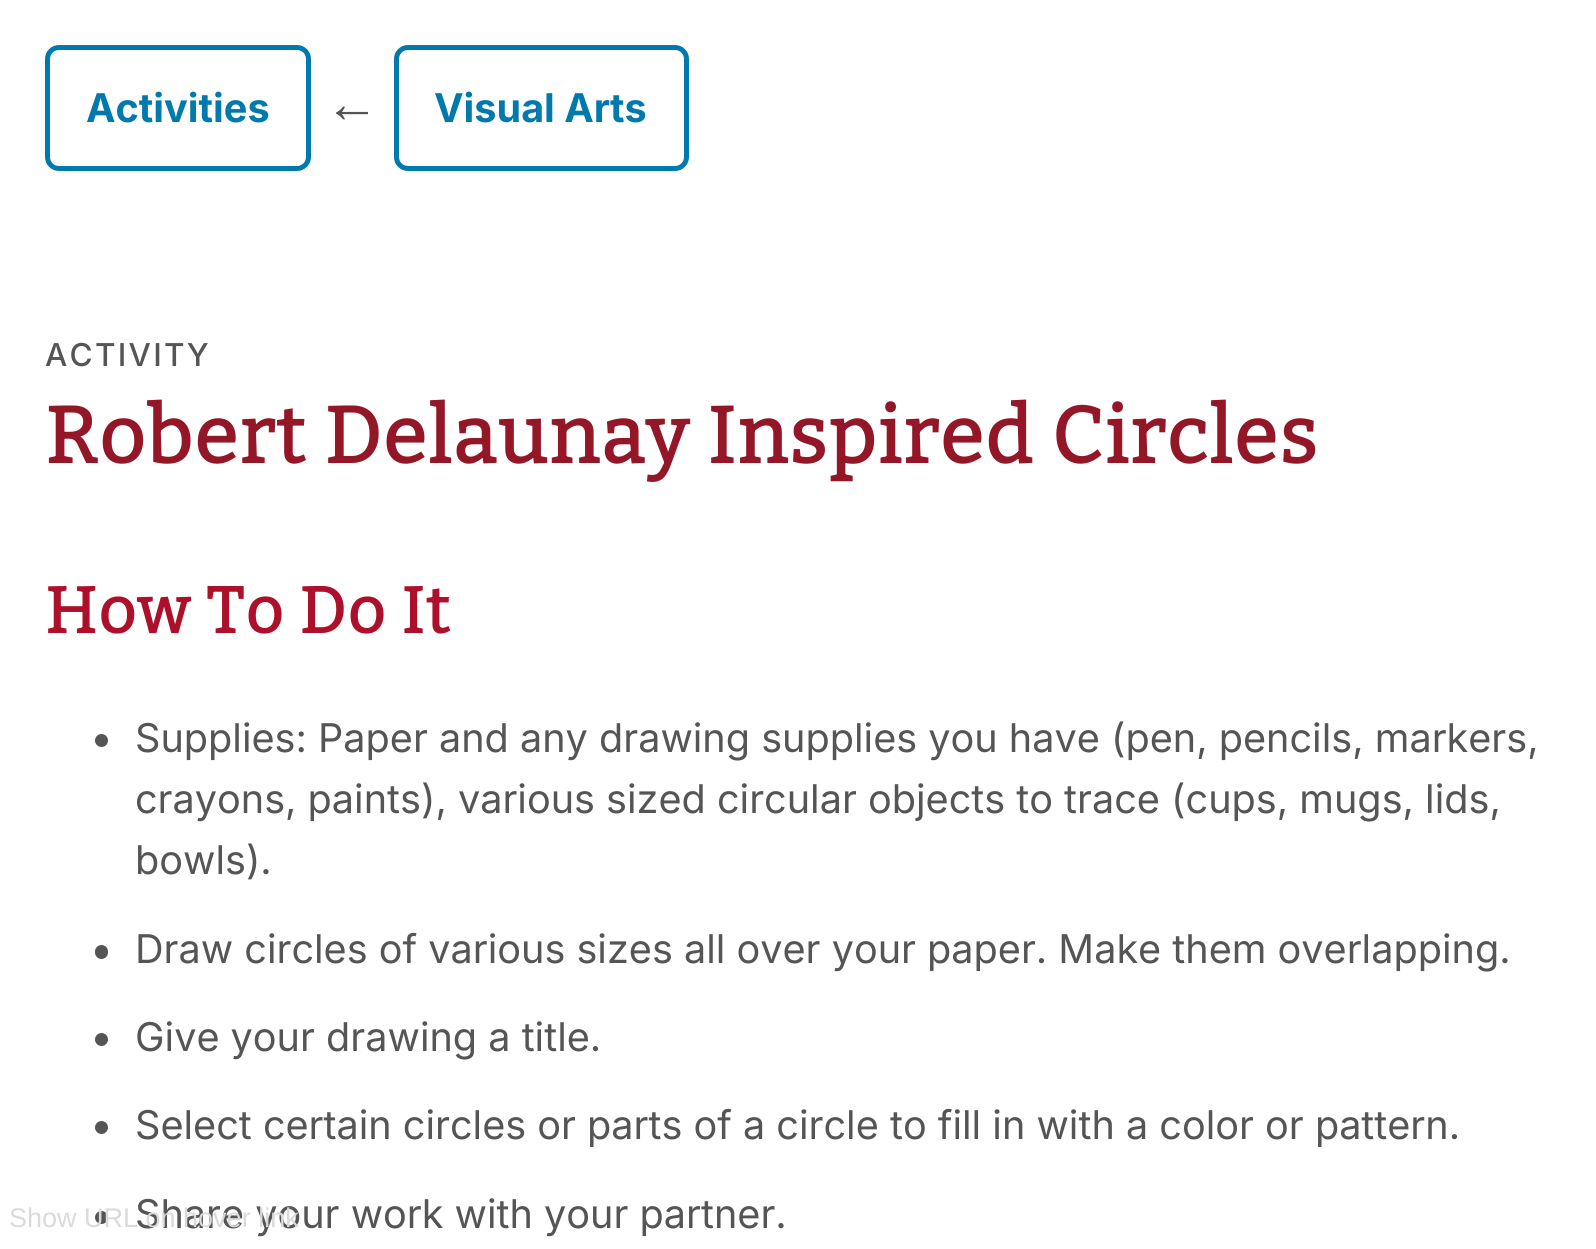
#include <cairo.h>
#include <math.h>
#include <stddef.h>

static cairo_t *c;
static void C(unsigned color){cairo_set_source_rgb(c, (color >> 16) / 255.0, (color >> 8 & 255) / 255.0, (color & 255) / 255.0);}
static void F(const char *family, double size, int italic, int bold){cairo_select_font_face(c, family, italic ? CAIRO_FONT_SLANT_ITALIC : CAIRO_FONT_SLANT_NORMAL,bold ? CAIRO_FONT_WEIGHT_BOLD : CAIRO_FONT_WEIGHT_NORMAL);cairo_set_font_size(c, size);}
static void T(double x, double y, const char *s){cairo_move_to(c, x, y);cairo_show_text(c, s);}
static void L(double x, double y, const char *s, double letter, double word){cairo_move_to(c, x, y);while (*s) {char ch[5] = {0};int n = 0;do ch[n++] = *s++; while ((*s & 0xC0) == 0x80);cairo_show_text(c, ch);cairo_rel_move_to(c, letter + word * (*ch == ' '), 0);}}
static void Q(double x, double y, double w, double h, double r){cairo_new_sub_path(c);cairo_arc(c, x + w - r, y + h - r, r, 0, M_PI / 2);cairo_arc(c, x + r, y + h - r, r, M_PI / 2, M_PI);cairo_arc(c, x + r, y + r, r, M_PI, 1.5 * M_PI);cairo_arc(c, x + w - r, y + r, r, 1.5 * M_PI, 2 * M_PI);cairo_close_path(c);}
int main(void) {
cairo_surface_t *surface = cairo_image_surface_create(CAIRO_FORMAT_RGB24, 1596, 1249);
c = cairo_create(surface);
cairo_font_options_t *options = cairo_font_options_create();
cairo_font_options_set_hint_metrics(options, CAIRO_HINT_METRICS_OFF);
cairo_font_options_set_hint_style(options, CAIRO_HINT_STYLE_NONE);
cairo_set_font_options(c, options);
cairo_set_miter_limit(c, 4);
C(0xffffff);
cairo_paint(c);
Q(47.5,47.5,261,121,11.5);
C(0x0079ac);
cairo_set_line_width(c,5);
cairo_stroke(c);
F("Inter",39.6,0,1);
T(86,122,"Activities");
F("Liberation Sans",54,0,0);
C(0x555555);
T(325,122,"←");
Q(396.5,47.5,290,121,11.5);
C(0x0079ac);
cairo_stroke(c);
F("Inter",39.6,0,1);
T(434,122,"Visual Arts");
F("Inter Medium",31.5,0,0);
C(0x555555);
L(45,366,"ACTIVITY",2.25,0);
F("Bitter",79.25,0,1);
C(0x941728);
L(45,463,"Robert Delaunay Inspired Circles",1.8,0);
F("Bitter",64.75,0,1);
C(0xad102a);
L(45,633,"How To Do It",1.8,0);
C(0x555555);
cairo_new_path(c);
cairo_arc(c,101.5,740.5,6.5,0,2 * M_PI);
cairo_fill(c);
F("Inter",39.6,0,0);
T(135,752,"Supplies: Paper and any drawing supplies you have (pen, pencils, markers,");
T(135,813,"crayons, paints), various sized circular objects to trace (cups, mugs, lids,");
T(135,874,"bowls).");
Q(95,945,13,14,6.5);
cairo_fill(c);
T(135,963,"Draw circles of various sizes all over your paper. Make them overlapping.");
cairo_new_path(c);
cairo_arc(c,101.5,1039.5,6.5,0,2 * M_PI);
cairo_fill(c);
T(135,1051,"Give your drawing a title.");
cairo_new_path(c);
cairo_arc(c,101.5,1127.5,6.5,0,2 * M_PI);
cairo_fill(c);
T(135,1139,"Select certain circles or parts of a circle to fill in with a color or pattern.");
cairo_new_path(c);
cairo_arc(c,101.5,1217.5,6.5,0,2 * M_PI);
cairo_fill(c);
T(135,1228,"Share your work with your partner.");
F("Liberation Sans",27,0,0);
C(0xdadada);
T(9,1227,"Show URL on hover link");
cairo_surface_write_to_png(surface, "o.png");
cairo_font_options_destroy(options);
cairo_destroy(c);
cairo_surface_destroy(surface);
return 0;
}
